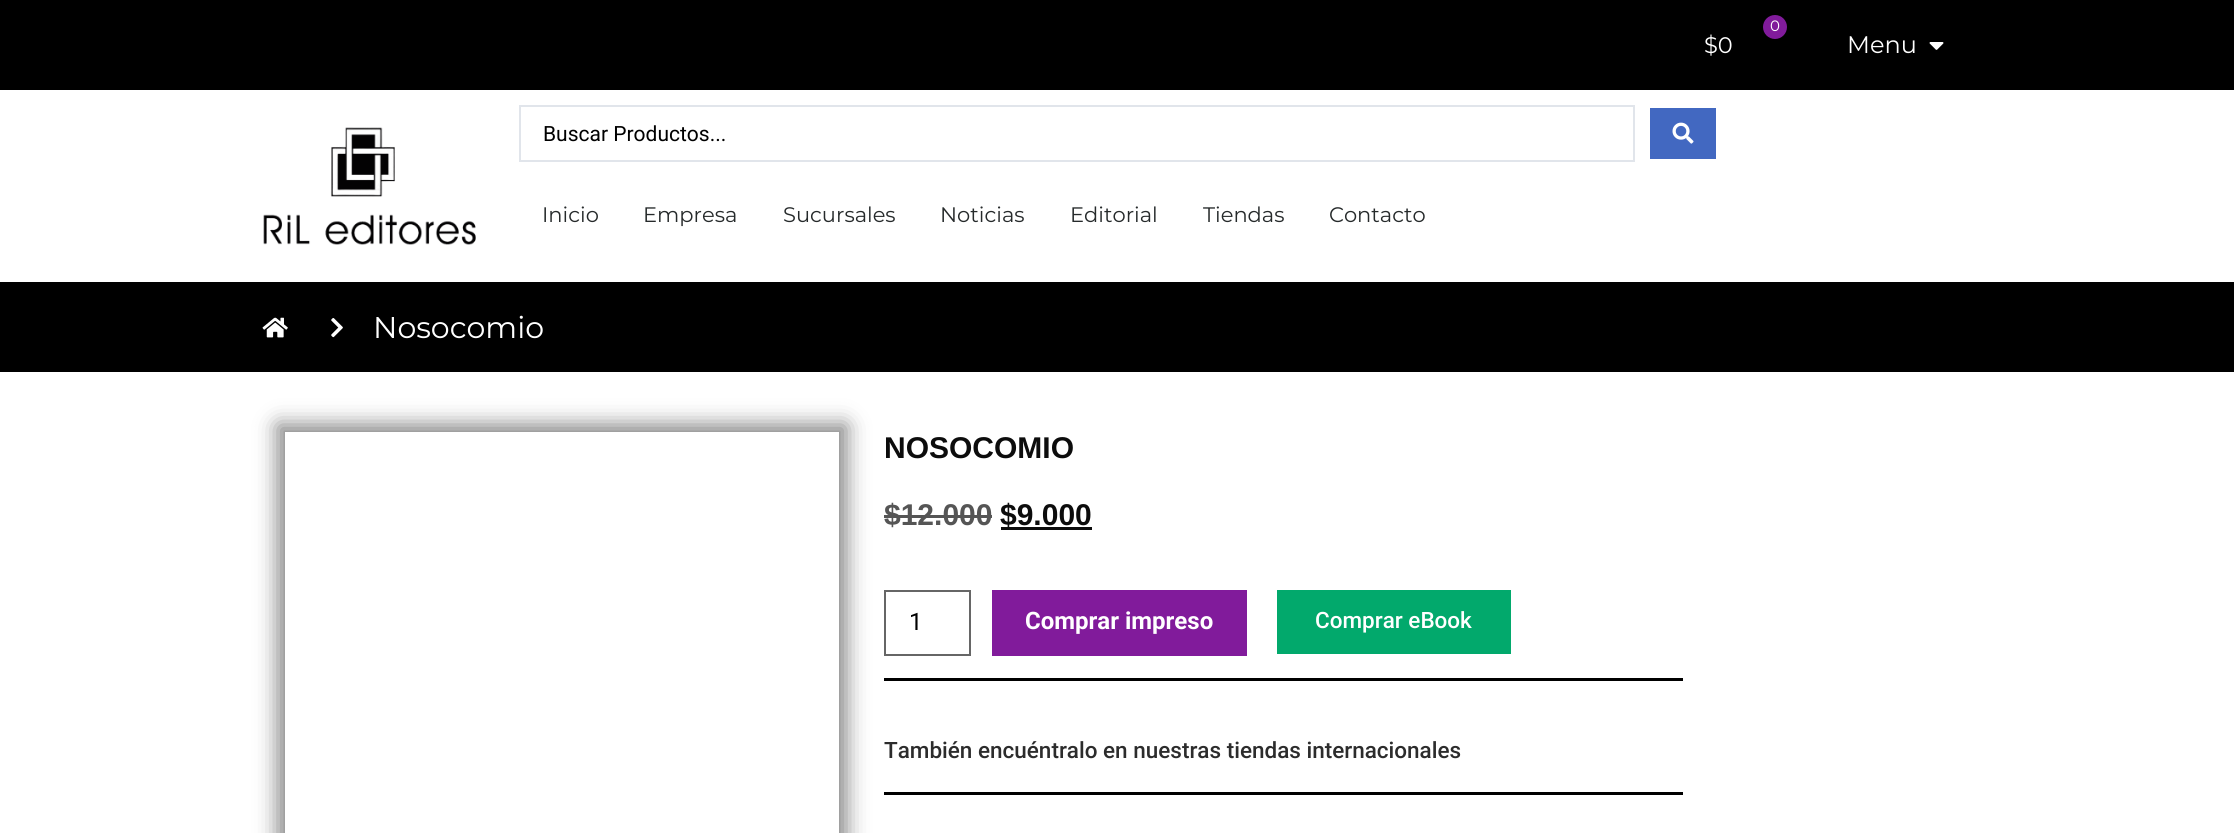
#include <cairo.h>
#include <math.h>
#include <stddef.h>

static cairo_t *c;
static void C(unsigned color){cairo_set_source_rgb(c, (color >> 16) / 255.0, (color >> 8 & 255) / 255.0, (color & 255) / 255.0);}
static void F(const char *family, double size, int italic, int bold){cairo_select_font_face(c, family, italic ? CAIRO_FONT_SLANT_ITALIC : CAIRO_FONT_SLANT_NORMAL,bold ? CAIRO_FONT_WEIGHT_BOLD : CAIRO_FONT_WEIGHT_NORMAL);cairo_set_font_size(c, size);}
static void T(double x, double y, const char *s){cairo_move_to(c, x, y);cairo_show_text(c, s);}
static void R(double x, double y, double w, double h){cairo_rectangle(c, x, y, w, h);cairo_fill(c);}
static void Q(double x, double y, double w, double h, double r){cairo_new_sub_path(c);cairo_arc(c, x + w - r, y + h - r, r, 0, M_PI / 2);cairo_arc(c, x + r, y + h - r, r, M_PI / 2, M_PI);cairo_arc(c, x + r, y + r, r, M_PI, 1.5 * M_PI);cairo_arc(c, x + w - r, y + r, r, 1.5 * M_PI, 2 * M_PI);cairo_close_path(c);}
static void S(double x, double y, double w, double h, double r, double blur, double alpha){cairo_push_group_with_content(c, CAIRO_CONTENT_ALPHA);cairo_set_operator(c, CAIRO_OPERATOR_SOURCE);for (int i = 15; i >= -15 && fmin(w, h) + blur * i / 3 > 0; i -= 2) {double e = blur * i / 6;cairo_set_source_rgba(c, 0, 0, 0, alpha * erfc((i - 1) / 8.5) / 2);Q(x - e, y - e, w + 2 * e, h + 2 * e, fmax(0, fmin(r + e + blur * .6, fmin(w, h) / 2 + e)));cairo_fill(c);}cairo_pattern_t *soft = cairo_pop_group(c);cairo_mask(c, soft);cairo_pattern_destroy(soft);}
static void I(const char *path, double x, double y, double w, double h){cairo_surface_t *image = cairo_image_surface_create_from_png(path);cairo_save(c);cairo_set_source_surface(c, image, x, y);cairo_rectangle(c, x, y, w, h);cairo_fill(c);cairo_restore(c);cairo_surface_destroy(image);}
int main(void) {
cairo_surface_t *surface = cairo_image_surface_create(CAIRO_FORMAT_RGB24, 2234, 833);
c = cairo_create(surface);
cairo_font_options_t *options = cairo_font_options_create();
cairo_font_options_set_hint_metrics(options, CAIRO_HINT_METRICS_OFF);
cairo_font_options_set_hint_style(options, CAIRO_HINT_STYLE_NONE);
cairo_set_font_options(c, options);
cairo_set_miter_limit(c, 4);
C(0xffffff);
cairo_paint(c);
C(0x000000);
R(0,0,2234,90);
C(0x811b9b);
cairo_arc(c,1775,27,12,0,2 * M_PI);
cairo_fill(c);
F("Montserrat",15,0,0);
C(0xffffff);
T(1770,31,"0");
F("Montserrat",22.5,0,0);
T(1704,53,"$0");
F("Montserrat",24,0,0);
T(1847,53,"Menu");
I("1.png",1929,42,15,8);
I("2.png",263,127,213,118);
cairo_rectangle(c,520,106,1114,55);
C(0xe1e5eb);
cairo_stroke(c);
F("Roboto",21,0,0);
C(0x000000);
T(543,141,"Buscar Productos...");
C(0x4268c1);
R(1650,108,66,51);
I("3.png",1672,122,22,22);
F("Montserrat",21,0,0);
C(0x262a2b);
T(542,222,"Inicio");
T(643,222,"Empresa");
T(783,222,"Sucursales");
T(940,222,"Noticias");
T(1070,222,"Editorial");
T(1203,222,"Tiendas");
T(1329,222,"Contacto");
C(0x000000);
R(0,282,2234,90);
I("4.png",262,317,26,21);
I("5.png",331,318,12,20);
F("Montserrat",30,0,0);
C(0xffffff);
T(373,338,"Nosocomio");
cairo_save(c);
cairo_set_fill_rule(c,CAIRO_FILL_RULE_EVEN_ODD);
cairo_new_path(c);
cairo_move_to(c,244,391);
cairo_line_to(c,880,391);
cairo_line_to(c,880,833);
cairo_line_to(c,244,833);
cairo_close_path(c);
cairo_move_to(c,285,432);
cairo_line_to(c,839,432);
cairo_line_to(c,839,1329);
cairo_line_to(c,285,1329);
cairo_close_path(c);
cairo_clip(c);
C(0x000000);
S(278,425,568,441,0,11,.5);
cairo_restore(c);
F("Liberation Sans",30,0,1);
C(0x0c0c0c);
T(884,458,"NOSOCOMIO");
C(0x555555);
T(884,525,"$12.000");
R(884,515,108,3);
C(0x0c0c0c);
R(1001,527,91,3);
T(1000,525,"$9.000");
cairo_rectangle(c,885,591,85,64);
C(0x666666);
cairo_stroke(c);
F("Roboto",24,0,0);
C(0x000000);
T(909,630,"1");
C(0x811b9b);
R(992,590,255,66);
F("Roboto",24,0,1);
C(0xffffff);
T(1025,629,"Comprar impreso");
C(0x02a96c);
R(1277,590,234,64);
F("Roboto Medium",22.5,0,0);
C(0xffffff);
T(1315,628,"Comprar eBook");
C(0x000000);
R(884,678,799,3);
C(0x2c2c2c);
T(884,758,"También encuéntralo en nuestras tiendas internacionales");
C(0x000000);
R(884,792,799,3);
cairo_surface_write_to_png(surface, "o.png");
cairo_font_options_destroy(options);
cairo_destroy(c);
cairo_surface_destroy(surface);
return 0;
}
